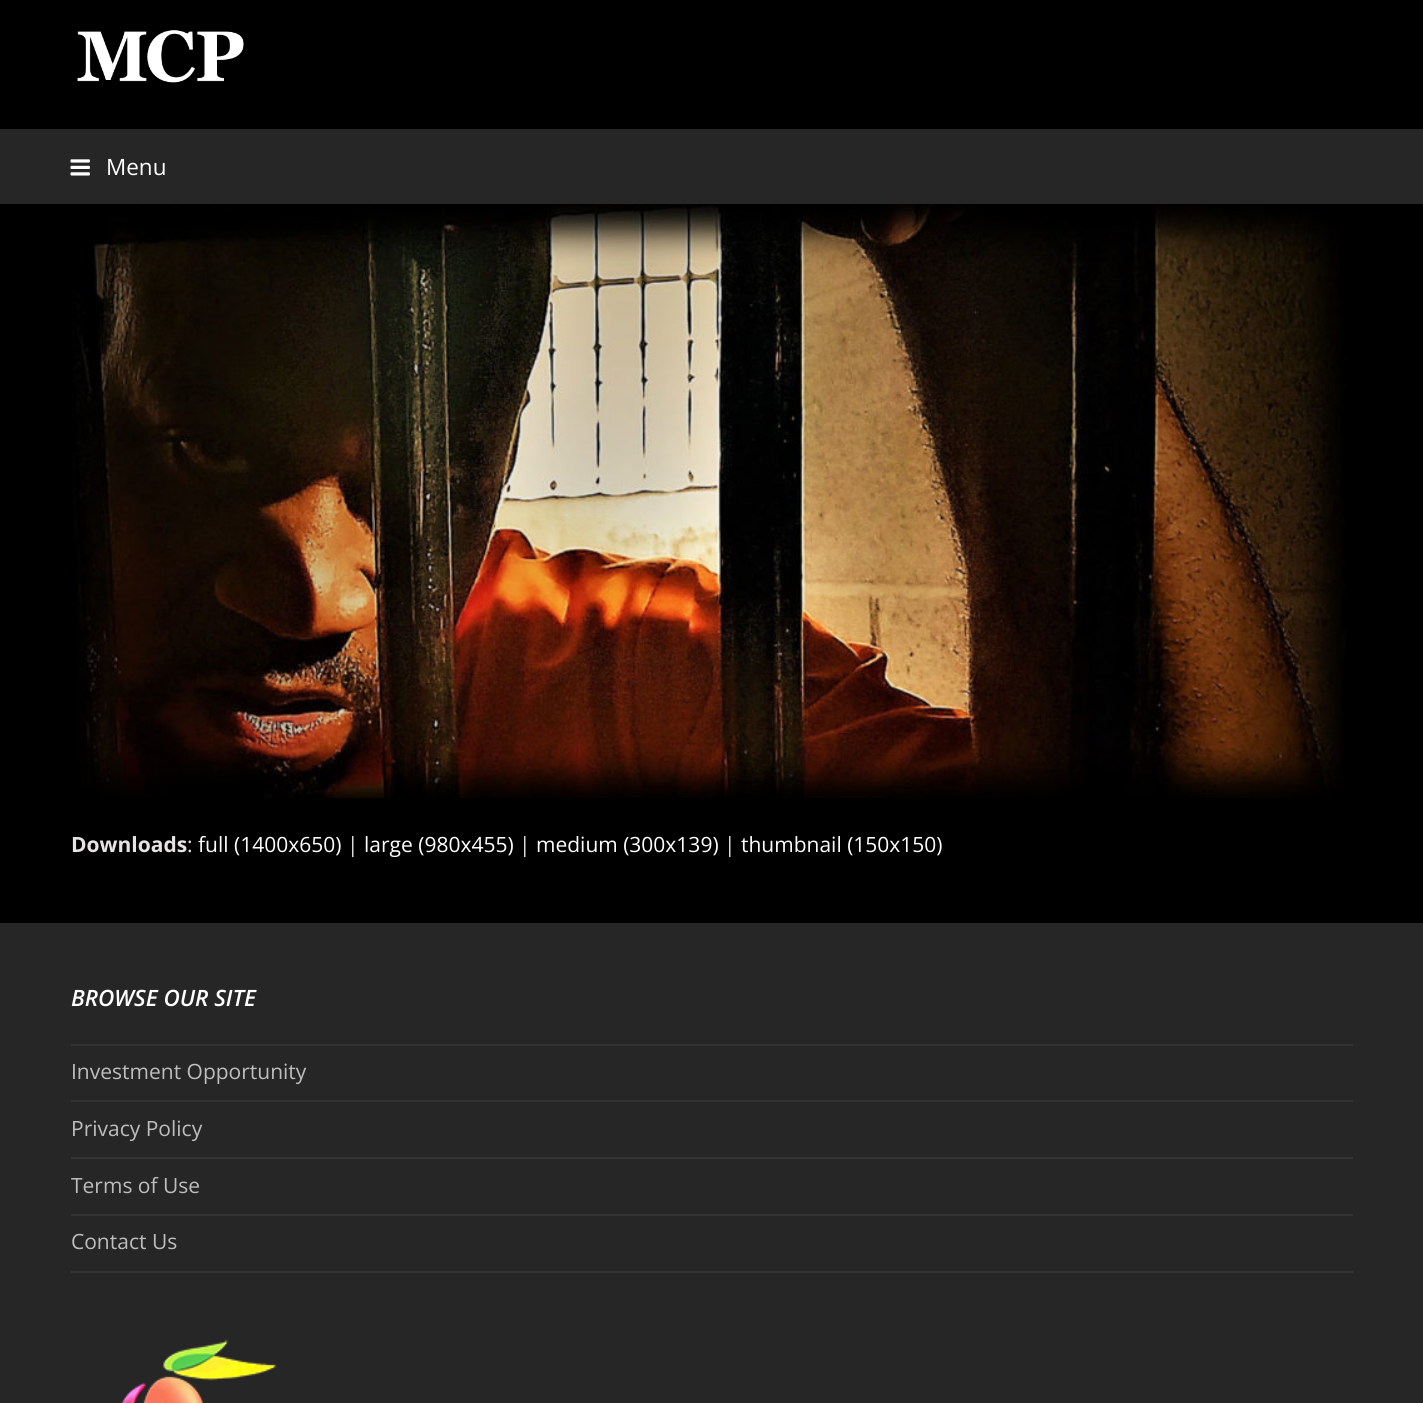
#include <cairo.h>
#include <math.h>
#include <stddef.h>

static cairo_t *c;
static void C(unsigned color){cairo_set_source_rgb(c, (color >> 16) / 255.0, (color >> 8 & 255) / 255.0, (color & 255) / 255.0);}
static void F(const char *family, double size, int italic, int bold){cairo_select_font_face(c, family, italic ? CAIRO_FONT_SLANT_ITALIC : CAIRO_FONT_SLANT_NORMAL,bold ? CAIRO_FONT_WEIGHT_BOLD : CAIRO_FONT_WEIGHT_NORMAL);cairo_set_font_size(c, size);}
static void T(double x, double y, const char *s){cairo_move_to(c, x, y);cairo_show_text(c, s);}
static void R(double x, double y, double w, double h){cairo_rectangle(c, x, y, w, h);cairo_fill(c);}
static void I(const char *path, double x, double y, double w, double h){cairo_surface_t *image = cairo_image_surface_create_from_png(path);cairo_save(c);cairo_set_source_surface(c, image, x, y);cairo_rectangle(c, x, y, w, h);cairo_fill(c);cairo_restore(c);cairo_surface_destroy(image);}
int main(void) {
cairo_surface_t *surface = cairo_image_surface_create(CAIRO_FORMAT_RGB24, 1423, 1403);
c = cairo_create(surface);
cairo_font_options_t *options = cairo_font_options_create();
cairo_font_options_set_hint_metrics(options, CAIRO_HINT_METRICS_OFF);
cairo_font_options_set_hint_style(options, CAIRO_HINT_STYLE_NONE);
cairo_set_font_options(c, options);
cairo_set_miter_limit(c, 4);
C(0x000000);
cairo_paint(c);
I("1.png",77,30,167,53);
C(0x262626);
R(0,129,1423,75);
I("2.png",70,159,20,17);
F("Open Sans",22.5,0,0);
C(0xffffff);
T(106,175,"Menu");
I("3.png",71,204,1275,594);
F("Open Sans",21,0,1);
C(0xe6e3e3);
T(71,852,"Downloads");
F("Open Sans",21,0,0);
T(187,852,":");
C(0xffffff);
T(198,852,"full (1400x650)");
C(0xe6e3e3);
T(347,852,"|");
C(0xffffff);
T(364,852,"large (980x455)");
C(0xe6e3e3);
T(519,852,"|");
C(0xffffff);
T(536,852,"medium (300x139)");
C(0xe6e3e3);
T(724,852,"|");
C(0xffffff);
T(741,852,"thumbnail (150x150)");
C(0x262626);
R(0,923,1423,480);
F("Open Sans SemiBold",22.5,1,0);
C(0xffffff);
T(71,1006,"BROWSE OUR SITE");
C(0x333333);
R(71,1044,1282,2);
R(71,1100,1282,2);
F("Open Sans",21,0,0);
C(0xbdbdbd);
T(71,1079,"Investment Opportunity");
C(0x333333);
R(71,1157,1282,2);
C(0xbdbdbd);
T(71,1136,"Privacy Policy");
C(0x333333);
R(71,1214,1282,2);
C(0xbdbdbd);
T(71,1193,"Terms of Use");
C(0x333333);
R(71,1271,1282,2);
C(0xbdbdbd);
T(71,1249,"Contact Us");
I("4.png",121,1339,156,64);
cairo_surface_write_to_png(surface, "o.png");
cairo_font_options_destroy(options);
cairo_destroy(c);
cairo_surface_destroy(surface);
return 0;
}
